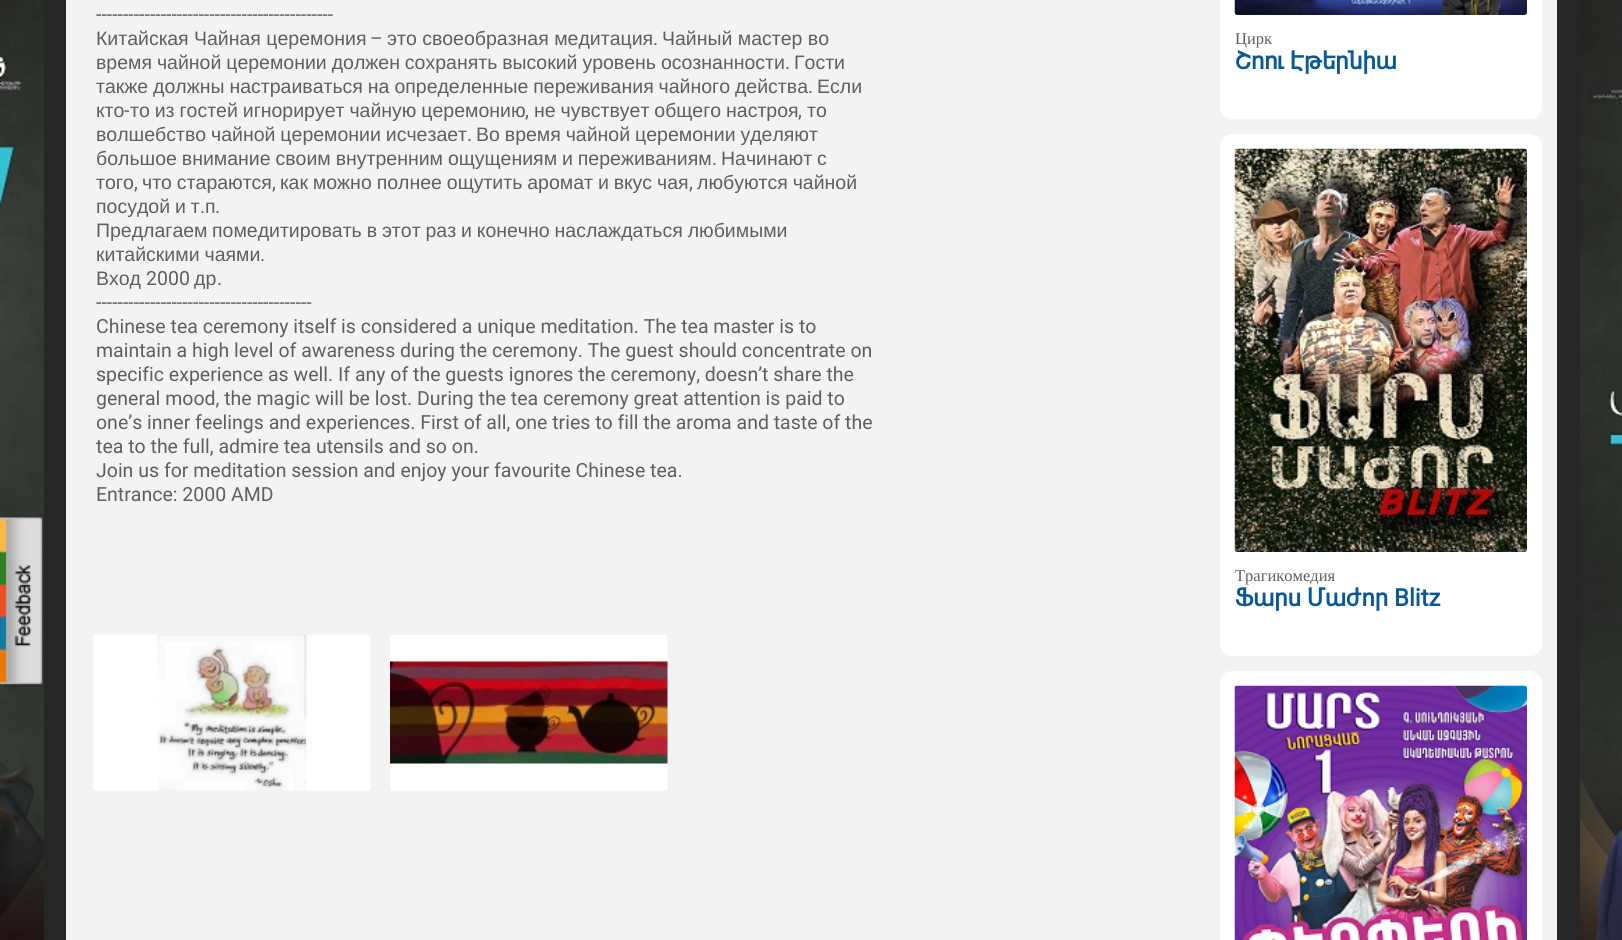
#include <cairo.h>
#include <math.h>
#include <stddef.h>

static cairo_t *c;
static void C(unsigned color){cairo_set_source_rgb(c, (color >> 16) / 255.0, (color >> 8 & 255) / 255.0, (color & 255) / 255.0);}
static void F(const char *family, double size, int italic, int bold){cairo_select_font_face(c, family, italic ? CAIRO_FONT_SLANT_ITALIC : CAIRO_FONT_SLANT_NORMAL,bold ? CAIRO_FONT_WEIGHT_BOLD : CAIRO_FONT_WEIGHT_NORMAL);cairo_set_font_size(c, size);}
static void T(double x, double y, const char *s){cairo_move_to(c, x, y);cairo_show_text(c, s);}
static void L(double x, double y, const char *s, double letter, double word){cairo_move_to(c, x, y);while (*s) {char ch[5] = {0};int n = 0;do ch[n++] = *s++; while ((*s & 0xC0) == 0x80);cairo_show_text(c, ch);cairo_rel_move_to(c, letter + word * (*ch == ' '), 0);}}
static void R(double x, double y, double w, double h){cairo_rectangle(c, x, y, w, h);cairo_fill(c);}
static void Q(double x, double y, double w, double h, double r){cairo_new_sub_path(c);cairo_arc(c, x + w - r, y + h - r, r, 0, M_PI / 2);cairo_arc(c, x + r, y + h - r, r, M_PI / 2, M_PI);cairo_arc(c, x + r, y + r, r, M_PI, 1.5 * M_PI);cairo_arc(c, x + w - r, y + r, r, 1.5 * M_PI, 2 * M_PI);cairo_close_path(c);}
static void I(const char *path, double x, double y, double w, double h){cairo_surface_t *image = cairo_image_surface_create_from_png(path);cairo_save(c);cairo_set_source_surface(c, image, x, y);cairo_rectangle(c, x, y, w, h);cairo_fill(c);cairo_restore(c);cairo_surface_destroy(image);}
int main(void) {
cairo_surface_t *surface = cairo_image_surface_create(CAIRO_FORMAT_RGB24, 1622, 940);
c = cairo_create(surface);
cairo_font_options_t *options = cairo_font_options_create();
cairo_font_options_set_hint_metrics(options, CAIRO_HINT_METRICS_OFF);
cairo_font_options_set_hint_style(options, CAIRO_HINT_STYLE_NONE);
cairo_set_font_options(c, options);
cairo_set_miter_limit(c, 4);
C(0xffffff);
cairo_paint(c);
I("1.png",0,0,1622,940);
I("2.png",0,517,43,170);
C(0x262626);
R(44,0,1536,940);
C(0xf3f3f3);
R(66,0,1491,940);
F("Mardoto",19.5,0,0);
C(0x5f5f5f);
T(96,21,"--------------------------------------------");
F("Liberation Sans",19.5,0,0);
T(96,45,"Китайская Чайная церемония");
F("Mardoto",19.5,0,0);
T(370,45,"–");
F("Liberation Sans",19.5,0,0);
T(387,45,"это своеобразная медитация");
T(662,45,"Чайный мастер во");
F("Mardoto",19.5,0,0);
T(653,45,".");
F("Liberation Sans",19.5,0,0);
L(96,69,"время чайной церемонии должен сохранять высокий уровень осознанности",0,-.5);
F("Mardoto",19.5,0,0);
T(785,69,".");
F("Liberation Sans",19.5,0,0);
T(794,69,"Гости");
L(96,93,"также должны настраиваться на определенные переживания чайного действа",0,-.5);
F("Mardoto",19.5,0,0);
T(808,93,".");
F("Liberation Sans",19.5,0,0);
T(817,93,"Если");
T(96,117,"кто");
F("Mardoto",19.5,0,0);
T(124,117,"-");
F("Liberation Sans",19.5,0,0);
L(130,117,"то из гостей игнорирует чайную церемонию",0,-.5);
L(534,117,"не чувствует общего настроя",0,-.5);
T(807,117,"то");
F("Mardoto",19.5,0,0);
T(525,117,",");
T(798,117,",");
F("Liberation Sans",19.5,0,0);
L(96,141,"волшебство чайной церемонии исчезает",0,-.5);
F("Mardoto",19.5,0,0);
T(467,141,".");
F("Liberation Sans",19.5,0,0);
L(476,141,"Во время чайной церемонии уделяют",0,-.5);
L(96,165,"большое внимание своим внутренним ощущениям и переживаниям",0,-.5);
F("Mardoto",19.5,0,0);
T(712,165,".");
F("Liberation Sans",19.5,0,0);
L(721,165,"Начинают с",0,-.5);
T(96,189,"того");
F("Mardoto",19.5,0,0);
T(134,189,",");
F("Liberation Sans",19.5,0,0);
L(142,189,"что стараются",0,-.5);
F("Mardoto",19.5,0,0);
T(272,189,",");
F("Liberation Sans",19.5,0,0);
L(280,189,"как можно полнее ощутить аромат и вкус чая",0,-.5);
F("Mardoto",19.5,0,0);
T(689,189,",");
F("Liberation Sans",19.5,0,0);
L(697,189,"любуются чайной",0,-.5);
L(96,213,"посудой и т",0,-.5);
F("Mardoto",19.5,0,0);
T(200,213,".");
F("Liberation Sans",19.5,0,0);
T(205,213,"п");
F("Mardoto",19.5,0,0);
T(215,213,".");
F("Liberation Sans",19.5,0,0);
T(96,237,"Предлагаем");
L(212,237,"помедитировать в этот раз и конечно наслаждаться любимыми",0,-.5);
L(96,261,"китайскими чаями",0,-.5);
F("Mardoto",19.5,0,0);
T(260,261,".");
F("Liberation Sans",19.5,0,0);
T(96,285,"Вход");
F("Mardoto",19.5,0,0);
T(146,285,"2000");
F("Liberation Sans",19.5,0,0);
T(194,285,"др");
F("Mardoto",19.5,0,0);
T(217,285,".");
T(96,309,"----------------------------------------");
T(96,333,"Chinese tea ceremony itself is considered a unique meditation. The tea master is to");
T(96,357,"maintain a high level of awareness during the ceremony. The guest should concentrate on");
T(96,381,"specific experience as well. If any of the guests ignores the ceremony, doesn’t share the");
T(96,405,"general mood, the magic will be lost. During the tea ceremony great attention is paid to");
T(96,429,"one’s inner feelings and experiences. First of all, one tries to fill the aroma and taste of the");
T(96,453,"tea to the full, admire tea utensils and so on.");
T(96,477,"Join us for meditation session and enjoy your favourite Chinese tea.");
T(96,501,"Entrance: 2000 AMD");
I("3.png",93,634,278,157);
I("4.png",390,635,278,156);
C(0xffffff);
Q(1220,-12,322,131,12);
cairo_fill(c);
I("5.png",1234,0,293,15);
F("Liberation Serif",16.5,0,0);
C(0x5f5f5f);
T(1235,44,"Цирк");
F("Mardoto",24,0,1);
C(0x075998);
T(1235,69,"Շոու Էթերնիա");
C(0xffffff);
Q(1220,134,322,522,12);
cairo_fill(c);
I("6.png",1234,148,293,404);
F("Liberation Serif",16.5,0,0);
C(0x5f5f5f);
T(1235,581,"Трагикомедия");
F("Mardoto",24,0,1);
C(0x075998);
T(1235,606,"Ֆարս Մաժոր Blitz");
C(0xffffff);
Q(1220,671,322,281,12);
cairo_fill(c);
I("7.png",1234,685,293,255);
cairo_surface_write_to_png(surface, "o.png");
cairo_font_options_destroy(options);
cairo_destroy(c);
cairo_surface_destroy(surface);
return 0;
}
